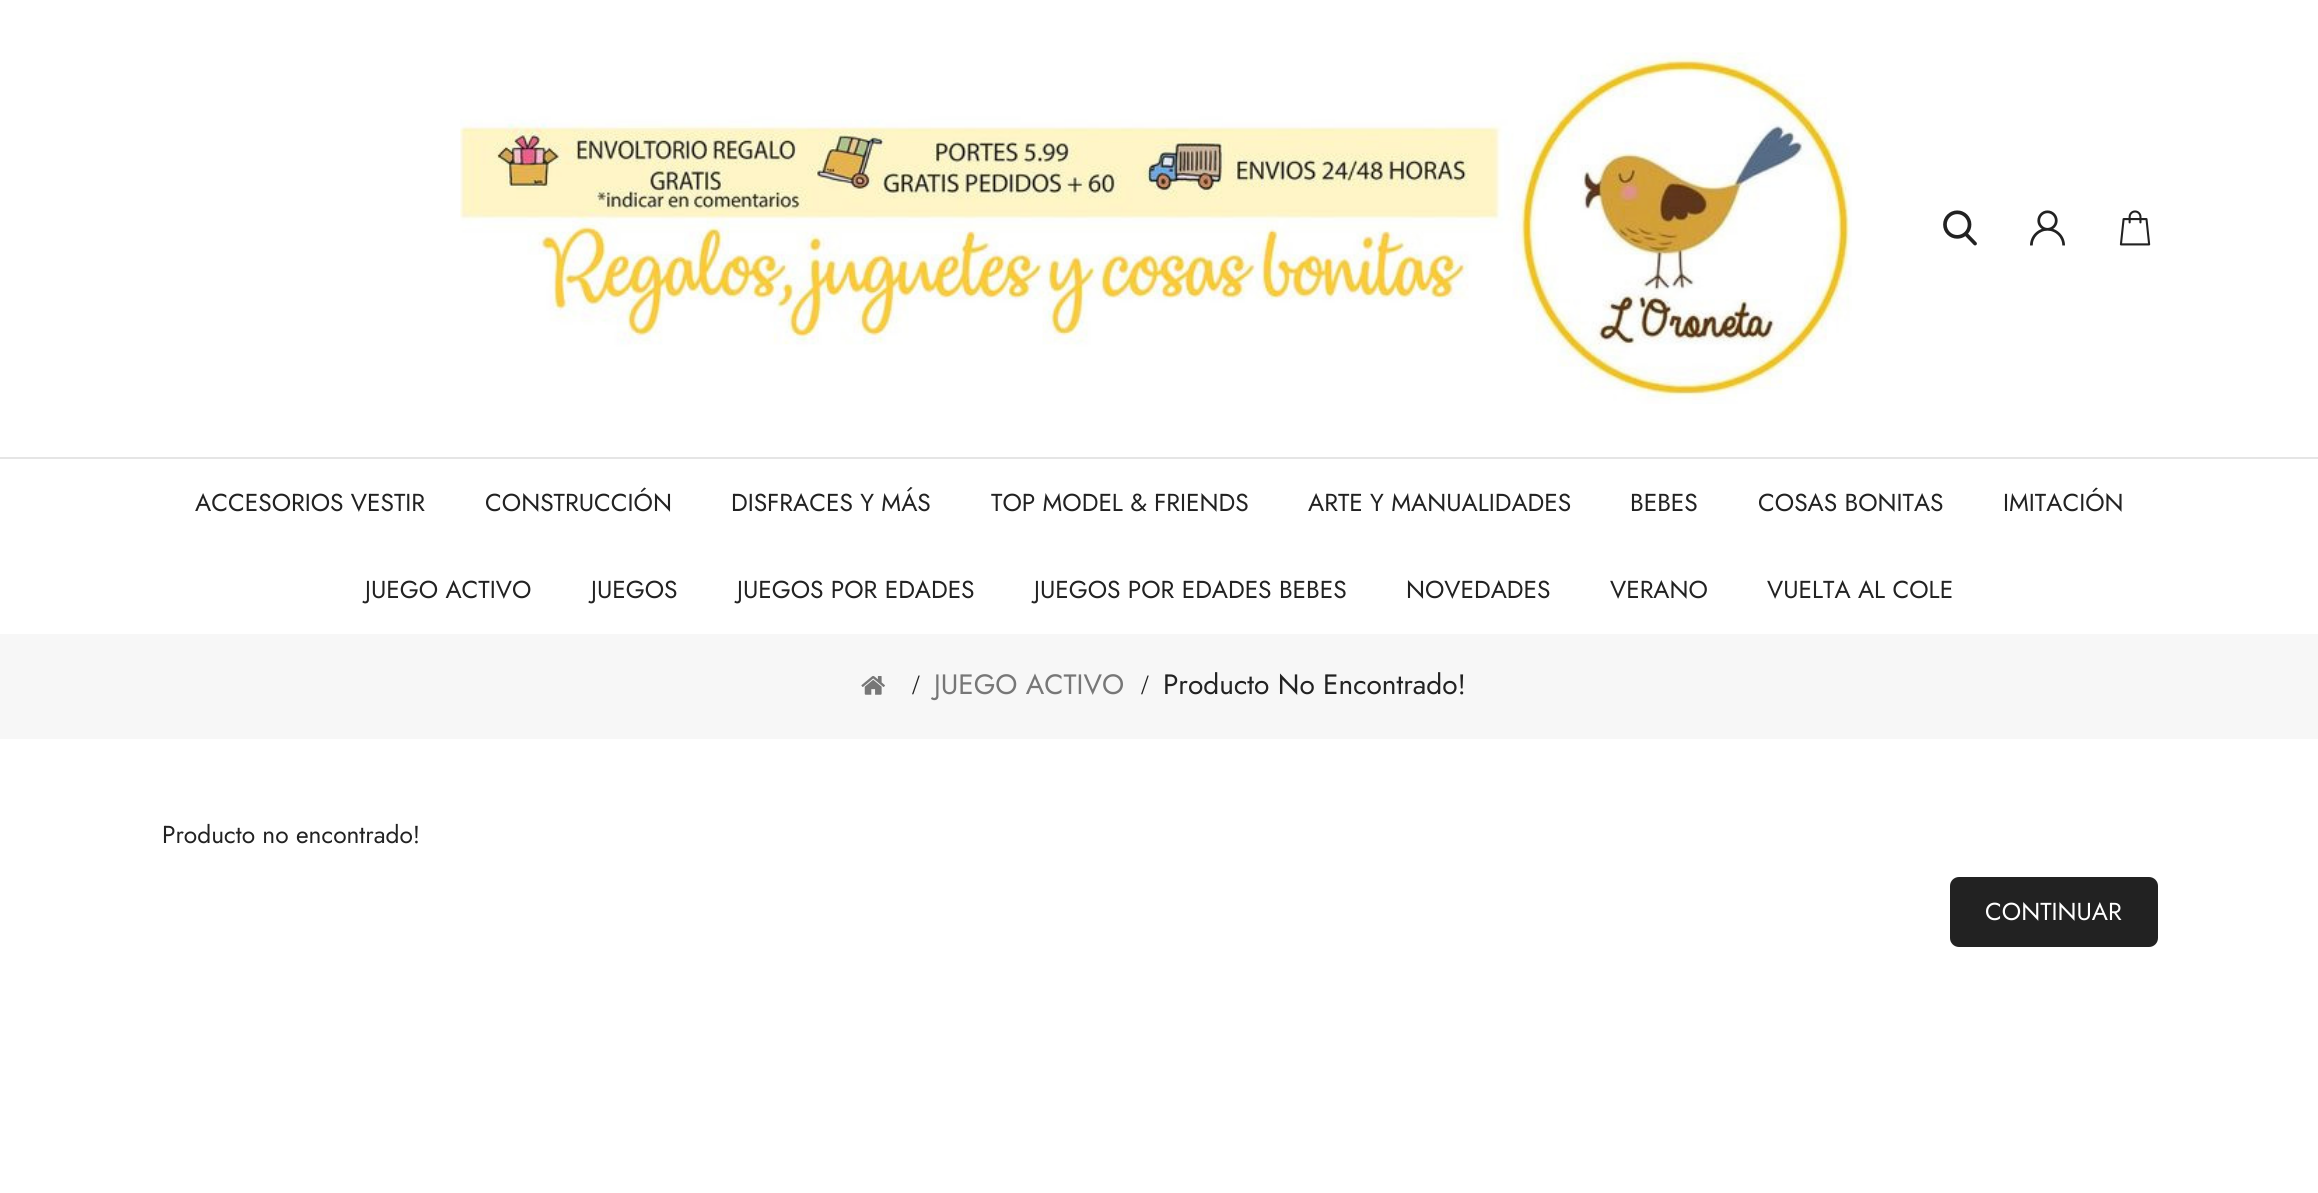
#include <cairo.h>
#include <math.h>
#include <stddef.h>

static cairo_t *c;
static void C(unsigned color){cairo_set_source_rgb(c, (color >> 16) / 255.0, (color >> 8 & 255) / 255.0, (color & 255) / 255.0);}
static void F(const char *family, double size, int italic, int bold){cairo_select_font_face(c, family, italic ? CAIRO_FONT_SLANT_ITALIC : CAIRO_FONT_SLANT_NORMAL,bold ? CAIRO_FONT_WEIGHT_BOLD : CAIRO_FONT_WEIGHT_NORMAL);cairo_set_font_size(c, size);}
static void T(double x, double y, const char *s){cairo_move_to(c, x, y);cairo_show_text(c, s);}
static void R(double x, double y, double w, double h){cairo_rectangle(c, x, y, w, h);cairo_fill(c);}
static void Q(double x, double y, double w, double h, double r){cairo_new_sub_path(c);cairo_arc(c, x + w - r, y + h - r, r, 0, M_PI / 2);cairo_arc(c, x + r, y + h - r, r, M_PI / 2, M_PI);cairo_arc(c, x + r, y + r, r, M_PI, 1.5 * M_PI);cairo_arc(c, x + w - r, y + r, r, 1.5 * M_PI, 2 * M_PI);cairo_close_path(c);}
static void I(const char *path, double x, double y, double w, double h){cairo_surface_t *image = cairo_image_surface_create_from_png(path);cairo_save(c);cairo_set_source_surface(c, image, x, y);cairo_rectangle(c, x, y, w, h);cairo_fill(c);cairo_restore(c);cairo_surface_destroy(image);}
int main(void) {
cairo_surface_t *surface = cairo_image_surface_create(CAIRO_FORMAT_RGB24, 2318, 1193);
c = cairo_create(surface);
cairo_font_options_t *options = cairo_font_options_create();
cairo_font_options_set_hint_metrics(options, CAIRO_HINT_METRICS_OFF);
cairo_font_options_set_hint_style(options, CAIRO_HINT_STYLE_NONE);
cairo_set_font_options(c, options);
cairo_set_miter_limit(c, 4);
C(0xffffff);
cairo_paint(c);
I("1.png",460,52,1392,352);
I("2.png",1943,210,34,36);
I("3.png",2030,210,35,36);
I("4.png",2119,210,32,36);
C(0xe5e5e5);
R(0,457,2318,2);
F("Jost",24.5,0,0);
C(0x222222);
T(195,511,"ACCESORIOS VESTIR");
T(485,511,"CONSTRUCCIÓN");
T(731,511,"DISFRACES Y MÁS");
T(991,511,"TOP MODEL & FRIENDS");
T(1308,511,"ARTE Y MANUALIDADES");
T(1630,511,"BEBES");
T(1758,511,"COSAS BONITAS");
T(2003,511,"IMITACIÓN");
T(365,598,"JUEGO ACTIVO");
T(591,598,"JUEGOS");
T(737,598,"JUEGOS POR EDADES");
T(1034,598,"JUEGOS POR EDADES BEBES");
T(1406,598,"NOVEDADES");
T(1610,598,"VERANO");
T(1767,598,"VUELTA AL COLE");
C(0xf7f7f7);
R(0,634,2318,105);
I("5.png",861,676,24,19);
F("Liberation Serif",28,0,0);
C(0x222222);
T(912,694,"/");
F("Jost",28,0,0);
C(0x777777);
T(934,694,"JUEGO ACTIVO");
F("Liberation Serif",28,0,0);
C(0x222222);
T(1141,694,"/");
F("Jost",28,0,0);
T(1163,694,"Producto No Encontrado!");
F("Jost",24.5,0,0);
T(162,843,"Producto no encontrado!");
Q(1950,877,208,70,9);
cairo_fill(c);
C(0xffffff);
T(1985,920,"CONTINUAR");
cairo_surface_write_to_png(surface, "o.png");
cairo_font_options_destroy(options);
cairo_destroy(c);
cairo_surface_destroy(surface);
return 0;
}
